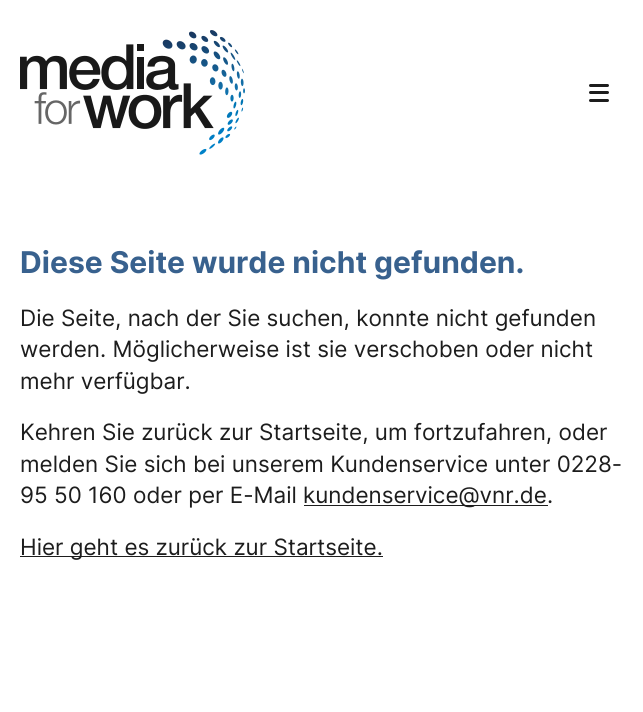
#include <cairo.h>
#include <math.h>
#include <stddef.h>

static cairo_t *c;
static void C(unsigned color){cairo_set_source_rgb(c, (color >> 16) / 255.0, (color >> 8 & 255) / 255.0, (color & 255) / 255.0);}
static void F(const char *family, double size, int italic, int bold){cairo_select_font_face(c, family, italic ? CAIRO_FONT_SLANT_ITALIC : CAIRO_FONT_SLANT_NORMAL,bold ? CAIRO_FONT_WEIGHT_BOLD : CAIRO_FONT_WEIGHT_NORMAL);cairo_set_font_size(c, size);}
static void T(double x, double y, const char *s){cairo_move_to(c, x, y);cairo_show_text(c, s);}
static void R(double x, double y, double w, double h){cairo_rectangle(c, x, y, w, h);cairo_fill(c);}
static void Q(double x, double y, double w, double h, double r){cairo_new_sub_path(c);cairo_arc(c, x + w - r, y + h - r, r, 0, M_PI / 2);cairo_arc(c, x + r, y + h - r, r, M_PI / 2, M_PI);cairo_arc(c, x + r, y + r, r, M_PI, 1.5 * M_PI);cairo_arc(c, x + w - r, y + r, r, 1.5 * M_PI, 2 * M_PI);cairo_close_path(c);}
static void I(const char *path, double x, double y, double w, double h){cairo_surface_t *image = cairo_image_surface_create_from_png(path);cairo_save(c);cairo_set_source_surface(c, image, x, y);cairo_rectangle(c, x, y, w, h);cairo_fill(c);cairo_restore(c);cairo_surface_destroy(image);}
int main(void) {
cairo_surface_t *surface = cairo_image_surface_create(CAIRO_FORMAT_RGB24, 643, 712);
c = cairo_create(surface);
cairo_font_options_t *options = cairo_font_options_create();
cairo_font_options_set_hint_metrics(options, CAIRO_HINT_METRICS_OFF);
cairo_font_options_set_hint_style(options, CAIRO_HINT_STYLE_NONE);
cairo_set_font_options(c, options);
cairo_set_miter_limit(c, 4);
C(0xffffff);
cairo_paint(c);
I("1.png",20,30,225,125);
C(0x1d1d1d);
Q(589,84,20,3,1.5);
cairo_fill(c);
Q(589,91,20,3,1.5);
cairo_fill(c);
Q(589,99,20,3,1.5);
cairo_fill(c);
F("Inter",30,0,1);
C(0x38618e);
T(20,273,"Diese Seite wurde nicht gefunden.");
F("Inter",22.5,0,0);
C(0x1d1d1d);
T(20,326,"Die Seite, nach der Sie suchen, konnte nicht gefunden");
T(20,357,"werden. Möglicherweise ist sie verschoben oder nicht");
T(20,389,"mehr verfügbar.");
T(20,440,"Kehren Sie zurück zur Startseite, um fortzufahren, oder");
T(20,472,"melden Sie sich bei unserem Kundenservice unter 0228-");
T(20,503,"95 50 160 oder per E-Mail");
R(304,505,244,1);
T(303,503,"kundenservice@vnr.de.");
R(20,556,363,1);
T(20,555,"Hier geht es zurück zur Startseite.");
cairo_surface_write_to_png(surface, "o.png");
cairo_font_options_destroy(options);
cairo_destroy(c);
cairo_surface_destroy(surface);
return 0;
}
